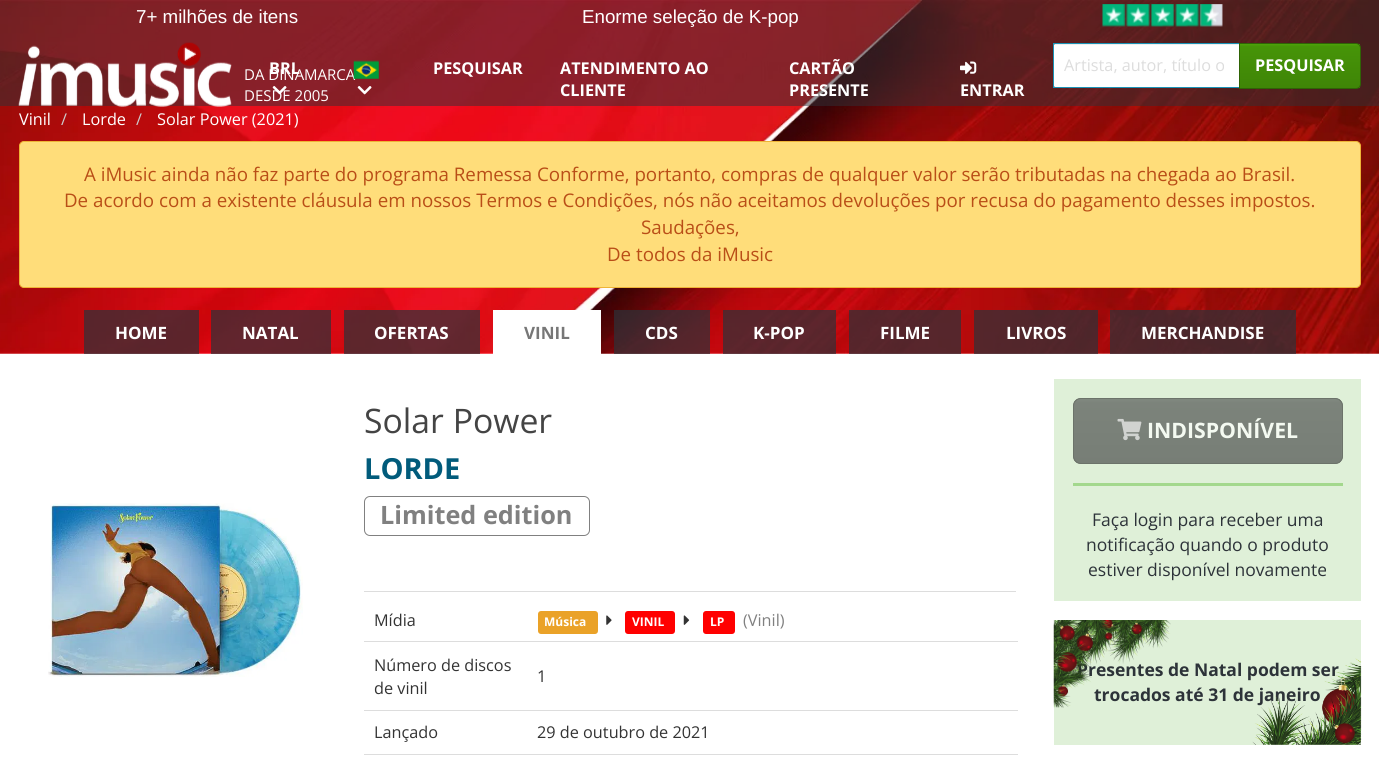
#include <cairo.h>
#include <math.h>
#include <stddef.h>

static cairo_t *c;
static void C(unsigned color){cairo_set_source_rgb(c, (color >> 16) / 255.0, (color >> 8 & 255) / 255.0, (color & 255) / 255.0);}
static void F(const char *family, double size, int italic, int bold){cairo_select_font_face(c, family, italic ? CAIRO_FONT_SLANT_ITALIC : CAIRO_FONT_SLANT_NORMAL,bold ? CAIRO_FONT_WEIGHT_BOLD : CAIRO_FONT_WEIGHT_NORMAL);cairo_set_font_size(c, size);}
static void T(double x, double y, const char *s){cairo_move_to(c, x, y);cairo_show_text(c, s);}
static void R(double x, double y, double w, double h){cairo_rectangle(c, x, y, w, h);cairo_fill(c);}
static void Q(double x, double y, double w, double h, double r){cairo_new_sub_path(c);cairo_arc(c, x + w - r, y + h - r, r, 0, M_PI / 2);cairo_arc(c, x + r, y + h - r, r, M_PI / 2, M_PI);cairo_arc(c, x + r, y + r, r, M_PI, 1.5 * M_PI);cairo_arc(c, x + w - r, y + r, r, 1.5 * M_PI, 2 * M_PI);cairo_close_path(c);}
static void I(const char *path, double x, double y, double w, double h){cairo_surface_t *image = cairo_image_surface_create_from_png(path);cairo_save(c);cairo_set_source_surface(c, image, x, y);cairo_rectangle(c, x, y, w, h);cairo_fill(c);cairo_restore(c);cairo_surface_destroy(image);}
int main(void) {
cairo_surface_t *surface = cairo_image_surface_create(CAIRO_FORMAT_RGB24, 1379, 757);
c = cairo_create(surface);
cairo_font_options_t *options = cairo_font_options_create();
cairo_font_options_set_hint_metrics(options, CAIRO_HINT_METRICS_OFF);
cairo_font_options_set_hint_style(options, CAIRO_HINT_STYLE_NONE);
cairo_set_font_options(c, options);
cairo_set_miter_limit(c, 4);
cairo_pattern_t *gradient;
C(0xffffff);
cairo_paint(c);
I("1.png",0,0,1379,354);
cairo_set_source_rgba(c,0.176,0.2,0.224,0.5);
R(0,0,1379,106);
F("Liberation Sans",18.75,0,0);
C(0xffffff);
T(136,23,"7+ milhões de itens");
T(582,23,"Enorme seleção de K-pop");
I("2.png",1102,4,121,23);
F("Open Sans",15,0,0);
T(244,80,"DA DINAMARCA");
F("Open Sans",16.25,0,1);
T(269,74,"BRL");
F("Open Sans",15,0,0);
T(244,101,"DESDE 2005");
I("3.png",272,86,15,9);
I("4.png",353,60,26,19);
I("5.png",357,86,15,9);
F("Open Sans",16.25,0,1);
T(433,74,"PESQUISAR");
T(560,74,"ATENDIMENTO AO");
T(560,96,"CLIENTE");
T(789,74,"CARTÃO");
T(789,96,"PRESENTE");
I("6.png",960,61,17,13);
T(960,96,"ENTRAR");
cairo_new_path(c);
cairo_move_to(c,1058,43);
cairo_line_to(c,1240,43);
cairo_line_to(c,1240,88);
cairo_line_to(c,1058,88);
cairo_curve_to(c,1055,88,1053,86,1053,83);
cairo_line_to(c,1053,48);
cairo_curve_to(c,1053,45,1055,43,1058,43);
cairo_close_path(c);
cairo_fill(c);
cairo_set_source_rgba(c,0,0,0,0.07);
R(1054,44,185,1);
cairo_rectangle(c,1053.5,43.5,186,44);
C(0x1993b6);
cairo_set_line_width(c,1);
cairo_stroke(c);
F("Open Sans",16.25,0,0);
C(0xdddddd);
T(1064,71,"Artista, autor, título o");
gradient = cairo_pattern_create_linear(1300,44,1300,88);
cairo_pattern_add_color_stop_rgba(gradient,0,0.302,0.639,0.035,1);
cairo_pattern_add_color_stop_rgba(gradient,.06,0.275,0.58,0.031,1);
cairo_pattern_add_color_stop_rgba(gradient,1,0.247,0.522,0.027,1);
cairo_set_source(c,gradient);
cairo_pattern_destroy(gradient);
R(1240,44,120,44);
cairo_new_path(c);
cairo_move_to(c,1239.5,43.5);
cairo_line_to(c,1356,43.5);
cairo_curve_to(c,1358.5,43.5,1360.5,45.5,1360.5,48);
cairo_line_to(c,1360.5,84);
cairo_curve_to(c,1360.5,86.5,1358.5,88.5,1356,88.5);
cairo_line_to(c,1239.5,88.5);
cairo_close_path(c);
C(0x2f6405);
cairo_stroke(c);
F("Open Sans",16.25,0,1);
C(0xffffff);
T(1255,71,"PESQUISAR");
I("7.png",18,42,214,65);
F("Open Sans",16.25,0,0);
T(19,125,"Vinil");
C(0xcccccc);
T(61,125,"/");
C(0xffffff);
T(82,125,"Lorde");
C(0xcccccc);
T(136,125,"/");
C(0xffffff);
T(157,125,"Solar Power (2021)");
C(0xffdd7a);
Q(19.5,141.5,1341,146,4.5);
cairo_fill_preserve(c);
C(0xeeb437);
cairo_stroke(c);
F("Open Sans",18.75,0,0);
C(0xb94e17);
T(84,181,"A iMusic ainda não faz parte do programa Remessa Conforme, portanto, compras de qualquer valor serão tributadas na chegada ao Brasil.");
T(64,207,"De acordo com a existente cláusula em nossos Termos e Condições, nós não aceitamos devoluções por recusa do pagamento desses impostos.");
T(641,234,"Saudações,");
T(607,261,"De todos da iMusic");
cairo_set_source_rgba(c,0.176,0.2,0.224,0.7);
R(84,310,115,44);
F("Open Sans",17,0,1);
C(0xffffff);
T(115,339,"HOME");
cairo_set_source_rgba(c,0.176,0.2,0.224,0.7);
R(211,310,120,44);
C(0xffffff);
T(242,339,"NATAL");
cairo_set_source_rgba(c,0.176,0.2,0.224,0.7);
R(344,310,136,44);
C(0xffffff);
T(374,339,"OFERTAS");
R(493,310,108,44);
C(0x777777);
T(524,339,"VINIL");
cairo_set_source_rgba(c,0.176,0.2,0.224,0.7);
R(614,310,96,44);
C(0xffffff);
T(645,339,"CDS");
cairo_set_source_rgba(c,0.176,0.2,0.224,0.7);
R(723,310,113,44);
C(0xffffff);
T(753,339,"K-POP");
cairo_set_source_rgba(c,0.176,0.2,0.224,0.7);
R(849,310,112,44);
C(0xffffff);
T(880,339,"FILME");
cairo_set_source_rgba(c,0.176,0.2,0.224,0.7);
R(974,310,124,44);
C(0xffffff);
T(1006,339,"LIVROS");
cairo_set_source_rgba(c,0.176,0.2,0.224,0.7);
R(1110,310,186,44);
C(0xffffff);
T(1141,339,"MERCHANDISE");
I("8.png",48,503,255,174);
F("Open Sans",33.75,0,0);
C(0x444444);
T(364,433,"Solar Power");
F("Open Sans",29,0,1);
C(0x015b7b);
T(364,479,"LORDE");
Q(364.5,496.5,225,39,5.5);
C(0x808080);
cairo_stroke(c);
F("Open Sans",25.25,0,1);
T(380,524,"Limited edition");
C(0xdddddd);
R(364,591,652,1);
F("Open Sans",16.25,0,0);
C(0x333333);
T(374,626,"Mídia");
C(0xeaa228);
Q(538,611,60,23,3);
cairo_fill(c);
F("Open Sans",12,0,1);
C(0xffffff);
T(544,626,"Música");
I("9.png",606,615,6,10);
C(0xff0000);
Q(625,611,50,23,3);
cairo_fill(c);
C(0xffffff);
T(632,626,"VINIL");
I("10.png",683,615,7,10);
C(0xff0000);
Q(703,611,32,23,3);
cairo_fill(c);
C(0xffffff);
T(710,626,"LP");
F("Open Sans",16.25,0,0);
C(0x808080);
T(743,626,"(Vinil)");
C(0x333333);
T(374,671,"Número de discos");
T(374,694,"de vinil");
C(0xdddddd);
R(364,641,654,1);
C(0x333333);
T(537,682,"1");
T(374,738,"Lançado");
C(0xdddddd);
R(364,710,654,1);
C(0x333333);
T(537,738,"29 de outubro de 2021");
C(0xdddddd);
R(364,754,654,1);
C(0xdff0d8);
R(1054,379,307,222);
C(0x7c837b);
Q(1073,398,270,66,8);
cairo_fill(c);
cairo_save(c);
Q(1073,398,270,66,8);
cairo_clip(c);
gradient = cairo_pattern_create_linear(1208,399,1208,463);
cairo_pattern_add_color_stop_rgba(gradient,0,0.506,0.537,0.502,1);
cairo_pattern_add_color_stop_rgba(gradient,.06,0.486,0.514,0.482,1);
cairo_pattern_add_color_stop_rgba(gradient,1,0.467,0.494,0.463,1);
cairo_set_source(c,gradient);
cairo_pattern_destroy(gradient);
R(1074,399,267,64);
cairo_restore(c);
Q(1073.5,398.5,269,65,7.5);
C(0x6c736a);
cairo_stroke(c);
I("11.png",1117,418,25,23);
F("Open Sans",21.25,0,1);
C(0xf4faf1);
T(1147,438,"INDISPONÍVEL");
C(0xa3d88d);
R(1073,483,270,3);
F("Open Sans",17.5,0,0);
C(0x2d3339);
T(1092,526,"Faça login para receber uma");
T(1086,551,"notificação quando o produto");
T(1088,576,"estiver disponível novamente");
C(0xdff0d8);
R(1054,620,307,125);
F("Open Sans",17.5,0,1);
C(0x2d3339);
T(1077,676,"Presentes de Natal podem ser");
T(1094,701,"trocados até 31 de janeiro");
I("12.png",1053,620,118,88);
I("13.png",1252,658,110,87);
cairo_surface_write_to_png(surface, "o.png");
cairo_font_options_destroy(options);
cairo_destroy(c);
cairo_surface_destroy(surface);
return 0;
}
